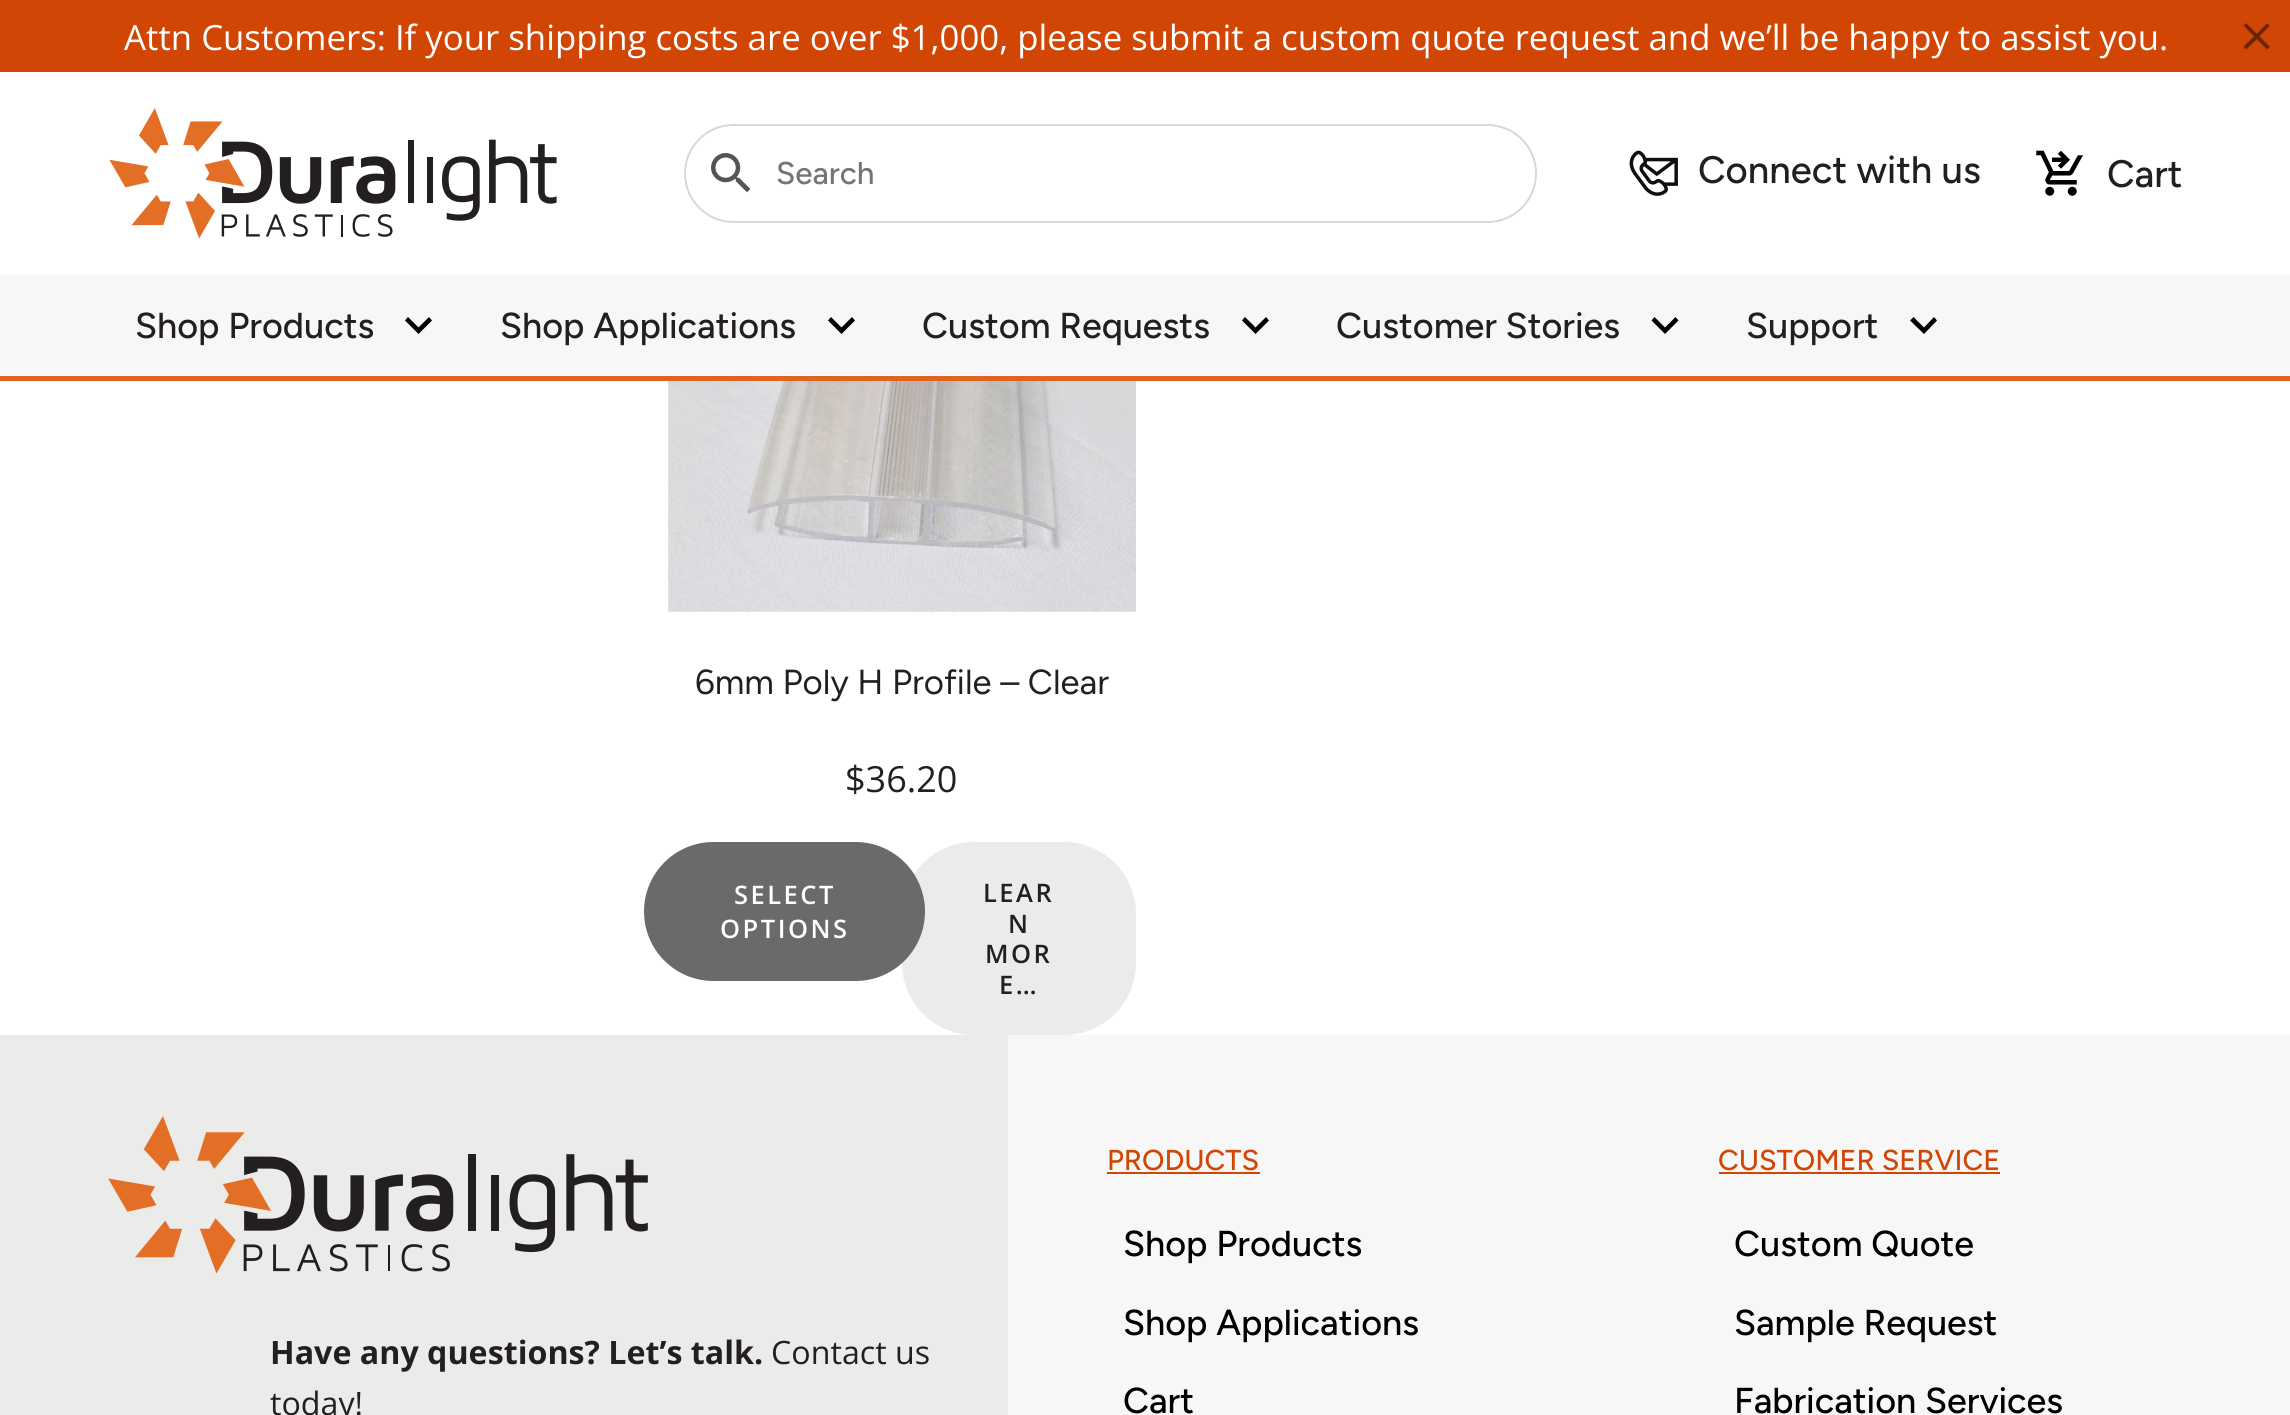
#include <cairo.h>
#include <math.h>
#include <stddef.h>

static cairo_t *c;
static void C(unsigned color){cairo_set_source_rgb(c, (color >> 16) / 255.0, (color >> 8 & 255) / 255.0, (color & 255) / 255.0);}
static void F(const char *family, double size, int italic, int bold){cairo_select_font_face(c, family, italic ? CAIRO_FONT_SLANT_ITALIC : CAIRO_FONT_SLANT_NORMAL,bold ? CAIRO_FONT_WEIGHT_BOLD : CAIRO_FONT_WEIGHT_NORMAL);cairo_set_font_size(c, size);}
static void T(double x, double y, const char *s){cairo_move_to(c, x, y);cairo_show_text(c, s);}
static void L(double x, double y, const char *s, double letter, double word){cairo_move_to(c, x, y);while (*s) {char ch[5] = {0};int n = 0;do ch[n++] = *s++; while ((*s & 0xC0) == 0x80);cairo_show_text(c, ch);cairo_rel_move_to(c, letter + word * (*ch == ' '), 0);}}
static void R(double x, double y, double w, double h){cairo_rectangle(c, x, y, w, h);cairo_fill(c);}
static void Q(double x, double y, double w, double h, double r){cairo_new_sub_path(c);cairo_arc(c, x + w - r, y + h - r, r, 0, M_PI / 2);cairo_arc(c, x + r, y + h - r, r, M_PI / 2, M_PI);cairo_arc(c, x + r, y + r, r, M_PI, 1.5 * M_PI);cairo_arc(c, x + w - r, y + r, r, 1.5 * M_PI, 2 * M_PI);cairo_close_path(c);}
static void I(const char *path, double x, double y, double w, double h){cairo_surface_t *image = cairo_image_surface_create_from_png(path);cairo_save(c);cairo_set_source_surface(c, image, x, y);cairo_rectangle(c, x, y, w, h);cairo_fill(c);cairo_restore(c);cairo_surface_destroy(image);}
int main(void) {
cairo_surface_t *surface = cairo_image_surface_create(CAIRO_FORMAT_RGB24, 2290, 1415);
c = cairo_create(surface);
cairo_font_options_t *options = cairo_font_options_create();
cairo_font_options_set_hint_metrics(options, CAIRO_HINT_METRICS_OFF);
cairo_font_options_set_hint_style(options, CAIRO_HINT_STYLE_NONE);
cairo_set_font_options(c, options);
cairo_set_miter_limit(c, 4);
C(0xffffff);
cairo_paint(c);
C(0xd14605);
R(0,0,2290,72);
F("Open Sans",34.77,0,0);
C(0xffffff);
T(124,50,"Attn Customers: If your shipping costs are over $1,000, please submit a custom quote request and we’ll be happy to assist you.");
I("1.png",2243,23,27,27);
I("2.png",109,108,448,131);
Q(685,125,851,97,48.5);
C(0xd8d8d8);
cairo_stroke(c);
I("3.png",711,153,40,40);
F("Figtree Medium",31.5,0,0);
C(0x757575);
T(776,184,"Search");
I("4.png",1629,150,49,46);
F("Figtree Medium",38.25,0,0);
C(0x231f20);
T(1698,183,"Connect with us");
I("5.png",2036,150,47,46);
T(2107,187,"Cart");
C(0xf7f7f7);
R(0,275,2290,101);
F("Figtree Medium",36,0,0);
C(0x231f20);
T(135,338,"Shop Products");
C(0x000000);
cairo_new_path(c);
cairo_move_to(c,418.5,334);
cairo_line_to(c,405,320.5);
cairo_line_to(c,408,317);
cairo_line_to(c,418.5,327.5);
cairo_line_to(c,429,317);
cairo_line_to(c,432,320.5);
cairo_close_path(c);
cairo_fill(c);
C(0x231f20);
T(500,338,"Shop Applications");
C(0x000000);
cairo_new_path(c);
cairo_move_to(c,841.5,334);
cairo_line_to(c,828,320.5);
cairo_line_to(c,831,317);
cairo_line_to(c,841.5,327.5);
cairo_line_to(c,852,317);
cairo_line_to(c,855,320.5);
cairo_close_path(c);
cairo_fill(c);
C(0x231f20);
T(922,338,"Custom Requests");
C(0x000000);
cairo_new_path(c);
cairo_move_to(c,1255.5,334);
cairo_line_to(c,1242,320.5);
cairo_line_to(c,1245,317);
cairo_line_to(c,1255.5,327.5);
cairo_line_to(c,1266,317);
cairo_line_to(c,1269,320.5);
cairo_close_path(c);
cairo_fill(c);
C(0x231f20);
T(1336,338,"Customer Stories");
C(0x000000);
cairo_new_path(c);
cairo_move_to(c,1665,334);
cairo_line_to(c,1651.5,320.5);
cairo_line_to(c,1654.5,317);
cairo_line_to(c,1665,327.5);
cairo_line_to(c,1675.5,317);
cairo_line_to(c,1678.5,320.5);
cairo_close_path(c);
cairo_fill(c);
C(0x231f20);
T(1746,338,"Support");
C(0x000000);
cairo_new_path(c);
cairo_move_to(c,1924,334);
cairo_line_to(c,1910,320.5);
cairo_line_to(c,1913.5,317);
cairo_line_to(c,1924,327.5);
cairo_line_to(c,1934,317);
cairo_line_to(c,1937,320.5);
cairo_close_path(c);
cairo_fill(c);
C(0xdd6422);
R(0,376,2290,5);
I("6.png",668,381,468,231);
F("Figtree",34.77,0,0);
C(0x231f20);
T(695,694,"6mm Poly H Profile – Clear");
F("Open Sans",36,0,0);
T(845,792,"$36.20");
C(0xebebe9);
Q(902,842,234,193,72);
cairo_fill(c);
C(0x6a6a6a);
Q(644,842,281,139,69.5);
cairo_fill(c);
F("Open Sans SemiBold",25.5,0,0);
C(0xffffff);
L(734,904,"SELECT",2.5,0);
L(720,938,"OPTIONS",2.5,0);
C(0x231f20);
L(983,902,"LEAR",2.5,0);
L(1008,933,"N",2.5,0);
L(985,963,"MOR",2.5,0);
L(999,994,"E…",2.5,0);
C(0xf7f7f7);
R(1008,1035,1282,380);
C(0xebebe9);
R(0,1035,1008,380);
I("7.png",108,1116,540,158);
F("Open Sans",32.2,0,1);
C(0x231f20);
T(270,1364,"Have any questions? Let’s talk.");
F("Open Sans",32.2,0,0);
T(771,1364,"Contact us");
T(270,1415,"today!");
F("Figtree Medium",28.75,0,0);
C(0xd14605);
T(1107,1170,"PRODUCTS");
R(1107,1172,153,2);
F("Figtree Medium",36,0,0);
C(0x000000);
T(1123,1256,"Shop Products");
T(1123,1335,"Shop Applications");
T(1123,1413,"Cart");
F("Figtree Medium",28.75,0,0);
C(0xd14605);
T(1718,1170,"CUSTOMER SERVICE");
R(1719,1172,281,2);
F("Figtree Medium",36,0,0);
C(0x000000);
T(1734,1256,"Custom Quote");
T(1734,1335,"Sample Request");
T(1734,1413,"Fabrication Services");
cairo_surface_write_to_png(surface, "o.png");
cairo_font_options_destroy(options);
cairo_destroy(c);
cairo_surface_destroy(surface);
return 0;
}
